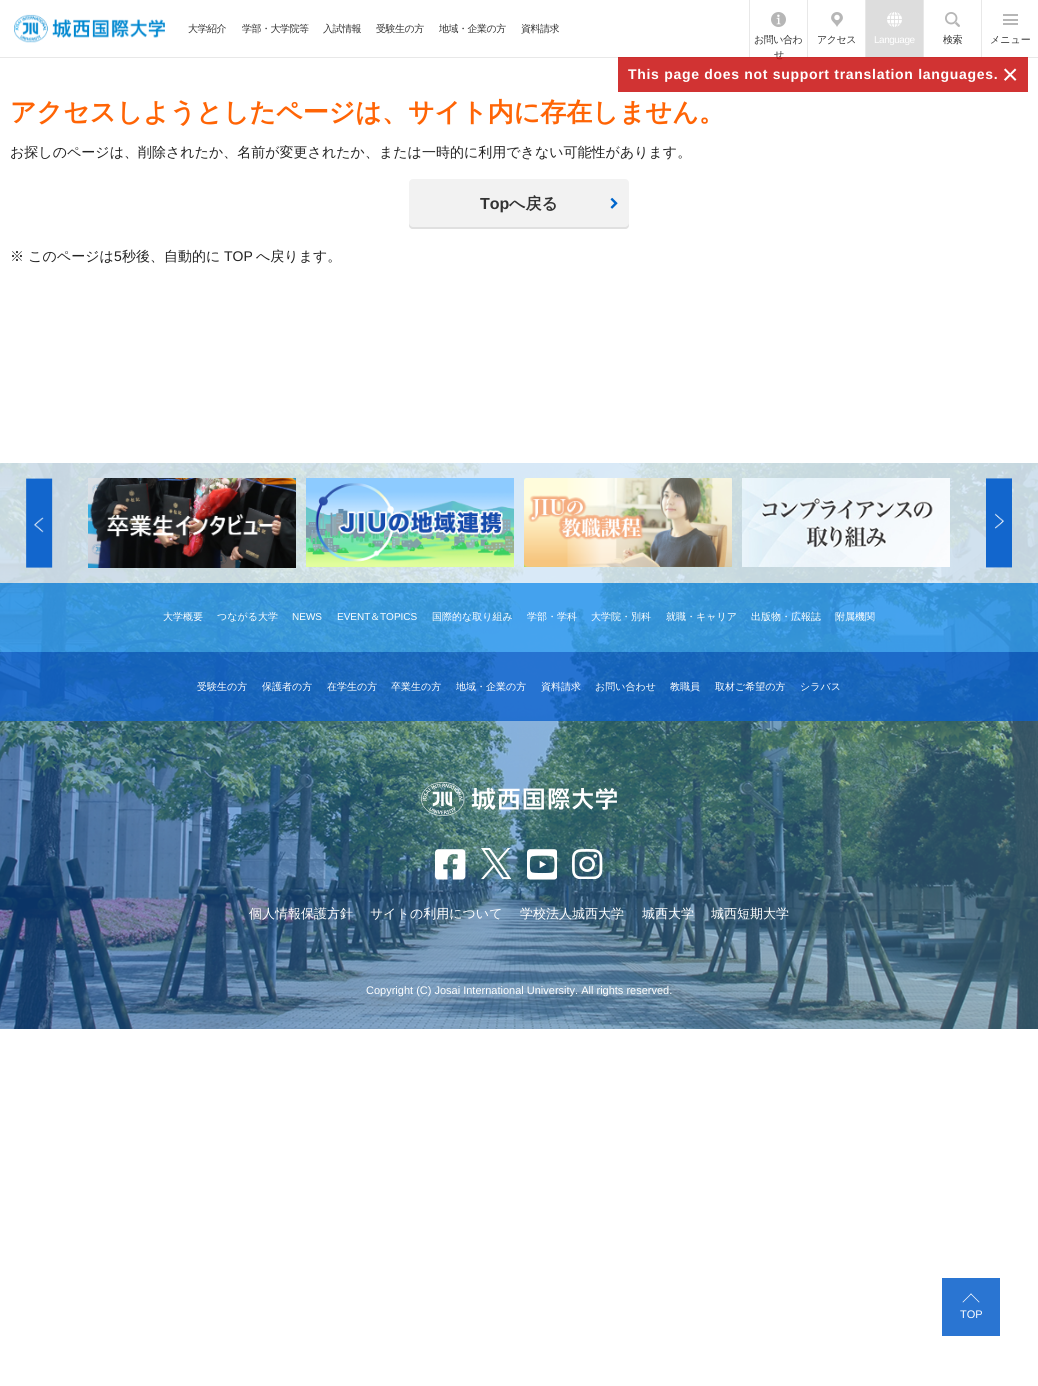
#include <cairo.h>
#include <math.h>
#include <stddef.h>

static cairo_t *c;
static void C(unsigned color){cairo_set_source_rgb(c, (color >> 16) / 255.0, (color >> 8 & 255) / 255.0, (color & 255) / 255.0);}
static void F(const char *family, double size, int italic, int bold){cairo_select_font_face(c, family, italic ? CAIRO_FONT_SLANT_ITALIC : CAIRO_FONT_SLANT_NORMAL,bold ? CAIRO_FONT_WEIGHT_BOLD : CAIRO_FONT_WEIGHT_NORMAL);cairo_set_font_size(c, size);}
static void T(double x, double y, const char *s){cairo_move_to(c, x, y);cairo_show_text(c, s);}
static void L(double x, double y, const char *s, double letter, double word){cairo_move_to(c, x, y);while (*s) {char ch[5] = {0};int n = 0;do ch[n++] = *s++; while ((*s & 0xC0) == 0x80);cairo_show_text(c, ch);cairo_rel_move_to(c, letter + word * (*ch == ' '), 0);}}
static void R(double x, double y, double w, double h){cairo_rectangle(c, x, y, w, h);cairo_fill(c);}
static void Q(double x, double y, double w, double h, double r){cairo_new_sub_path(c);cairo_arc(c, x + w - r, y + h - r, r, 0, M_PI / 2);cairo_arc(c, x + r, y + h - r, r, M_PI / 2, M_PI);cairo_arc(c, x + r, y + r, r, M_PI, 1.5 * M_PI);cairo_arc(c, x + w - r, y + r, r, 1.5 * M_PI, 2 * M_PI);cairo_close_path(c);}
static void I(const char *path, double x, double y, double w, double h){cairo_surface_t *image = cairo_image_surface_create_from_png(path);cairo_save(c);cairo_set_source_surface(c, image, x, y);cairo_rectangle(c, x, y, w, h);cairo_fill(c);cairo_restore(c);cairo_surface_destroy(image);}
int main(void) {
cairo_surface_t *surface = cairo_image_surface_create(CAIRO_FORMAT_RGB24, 1038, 1386);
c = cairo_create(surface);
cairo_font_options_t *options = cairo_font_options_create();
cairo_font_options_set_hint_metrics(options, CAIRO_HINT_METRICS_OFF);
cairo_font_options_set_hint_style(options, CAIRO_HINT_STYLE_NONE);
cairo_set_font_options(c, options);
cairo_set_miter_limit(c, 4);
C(0xffffff);
cairo_paint(c);
C(0xe8e8e8);
R(0,57,1038,1);
I("1.png",14,14,151,29);
F("WenQuanYi Zen Hei Medium",10,0,0);
C(0x333333);
L(188,32,"大学紹介",-.5,0);
L(242,32,"学部・大学院等",-.5,0);
L(323,32,"入試情報",-.5,0);
L(376,32,"受験生の方",-.5,0);
L(439,32,"地域・企業の方",-.5,0);
L(521,32,"資料請求",-.5,0);
C(0xe8e8e8);
R(749,0,1,57);
I("2.png",771,12,15,15);
C(0x333333);
L(754,43,"お問い合わ",-.5,0);
L(774,58,"せ",-.5,0);
C(0xe8e8e8);
R(807,0,1,57);
I("3.png",831,12,12,15);
C(0x333333);
L(817,43,"アクセス",-.5,0);
C(0xe8e8e8);
R(865,0,1,57);
C(0xdddddd);
R(866,0,57,57);
I("4.png",887,12,15,15);
F("Liberation Sans",10,0,0);
C(0xffffff);
L(874,43,"Language",-.5,0);
C(0xe8e8e8);
R(923,0,1,57);
I("5.png",945,12,15,15);
F("WenQuanYi Zen Hei Medium",10,0,0);
C(0x333333);
L(943,43,"検索",-.5,0);
C(0xe8e8e8);
R(981,0,1,57);
C(0xb6b6b6);
R(1003,14,15,2);
R(1003,19,15,2);
R(1003,23,15,2);
C(0x333333);
T(990,43,"メニュー");
cairo_set_source_rgba(c,0.773,0,0,0.8);
R(618,57,410,35);
F("Liberation Sans",14,0,1);
C(0xffffff);
L(628,79,"This page does not support translation languages.",.7,0);
F("Liberation Sans",28,0,0);
T(1002,84,"×");
F("WenQuanYi Zen Hei",26,0,1);
C(0xff6405);
T(10,121,"アクセスしようとしたページは、サイト内に存在しません。");
F("WenQuanYi Zen Hei Medium",14,0,0);
C(0x222222);
T(10,157,"お探しのページは、削除されたか、名前が変更されたか、または一時的に利用できない可能性があります。");
C(0xf2f2f2);
Q(409,179,220,50,4);
cairo_fill(c);
C(0xe0e0e0);
cairo_new_path(c);
cairo_move_to(c,409,223);
cairo_curve_to(c,409,226,409,228,412,229);
cairo_line_to(c,626,229);
cairo_curve_to(c,629,228,629,226,629,223);
cairo_curve_to(c,629,225,627,227,625,227);
cairo_line_to(c,413,227);
cairo_curve_to(c,411,227,409,225,409,223);
cairo_close_path(c);
cairo_fill(c);
F("Liberation Sans",16,0,1);
C(0x333333);
T(480,209,"Top");
F("WenQuanYi Zen Hei",16,0,1);
T(509,209,"へ戻る");
I("6.png",610,197,8,12);
F("WenQuanYi Zen Hei Medium",14,0,0);
C(0x222222);
T(10,261,"※ このページは");
F("Liberation Sans",14,0,0);
T(114,261,"5");
F("WenQuanYi Zen Hei Medium",14,0,0);
T(122,261,"秒後、自動的に");
F("Liberation Sans",14,0,0);
T(224,261,"TOP");
F("WenQuanYi Zen Hei Medium",14,0,0);
T(256,261,"へ戻ります。");
I("7.png",0,463,1038,566);
cairo_set_source_rgba(c,0.855,0.918,0.969,0.9);
R(0,463,1038,120);
I("8.png",26,478,27,90);
I("9.png",88,478,208,90);
I("10.png",306,478,208,89);
I("11.png",524,478,208,89);
I("12.png",742,478,208,89);
I("13.png",986,478,26,90);
cairo_set_source_rgba(c,0.208,0.608,0.929,0.9);
R(0,583,1038,69);
F("WenQuanYi Zen Hei Medium",10,0,0);
C(0xffffff);
T(163,620,"大学概要");
T(217,620,"つながる大学");
F("Liberation Sans",10,0,0);
T(292,620,"NEWS");
T(337,620,"EVENT");
F("WenQuanYi Zen Hei Medium",10,0,0);
T(370,620,"＆");
F("Liberation Sans",10,0,0);
T(380,620,"TOPICS");
F("WenQuanYi Zen Hei Medium",10,0,0);
T(432,620,"国際的な取り組み");
T(527,620,"学部・学科");
T(591,620,"大学院・別科");
T(666,620,"就職・キャリア");
T(751,620,"出版物・広報誌");
T(835,620,"附属機関");
cairo_set_source_rgba(c,0.071,0.4,0.804,0.9);
R(0,652,1038,69);
C(0xffffff);
T(197,690,"受験生の方");
T(262,690,"保護者の方");
T(327,690,"在学生の方");
T(391,690,"卒業生の方");
T(456,690,"地域・企業の方");
T(541,690,"資料請求");
T(595,690,"お問い合わせ");
T(670,690,"教職員");
T(715,690,"取材ご希望の方");
T(800,690,"シラバス");
I("14.png",421,782,196,34);
I("15.png",435,849,31,31);
I("16.png",481,848,30,32);
I("17.png",527,849,30,31);
I("18.png",572,849,31,30);
F("WenQuanYi Zen Hei Medium",13,0,0);
T(249,918,"個人情報保護方針");
T(370,918,"サイトの利用について");
T(520,918,"学校法人城西大学");
T(642,918,"城西大学");
T(711,918,"城西短期大学");
F("Liberation Sans",11,0,0);
T(366,994,"Copyright (C) Josai International University. All rights reserved.");
C(0x2a75d2);
R(942,1278,58,58);
C(0xffffff);
cairo_new_path(c);
cairo_move_to(c,971,1293.5);
cairo_line_to(c,979.5,1302);
cairo_line_to(c,979,1302.5);
cairo_line_to(c,970.5,1294);
cairo_close_path(c);
cairo_fill(c);
cairo_new_path(c);
cairo_move_to(c,971,1293.5);
cairo_line_to(c,971.5,1294);
cairo_line_to(c,963,1302.5);
cairo_line_to(c,962.5,1302);
cairo_close_path(c);
cairo_fill(c);
T(960,1318,"TOP");
cairo_surface_write_to_png(surface, "o.png");
cairo_font_options_destroy(options);
cairo_destroy(c);
cairo_surface_destroy(surface);
return 0;
}
